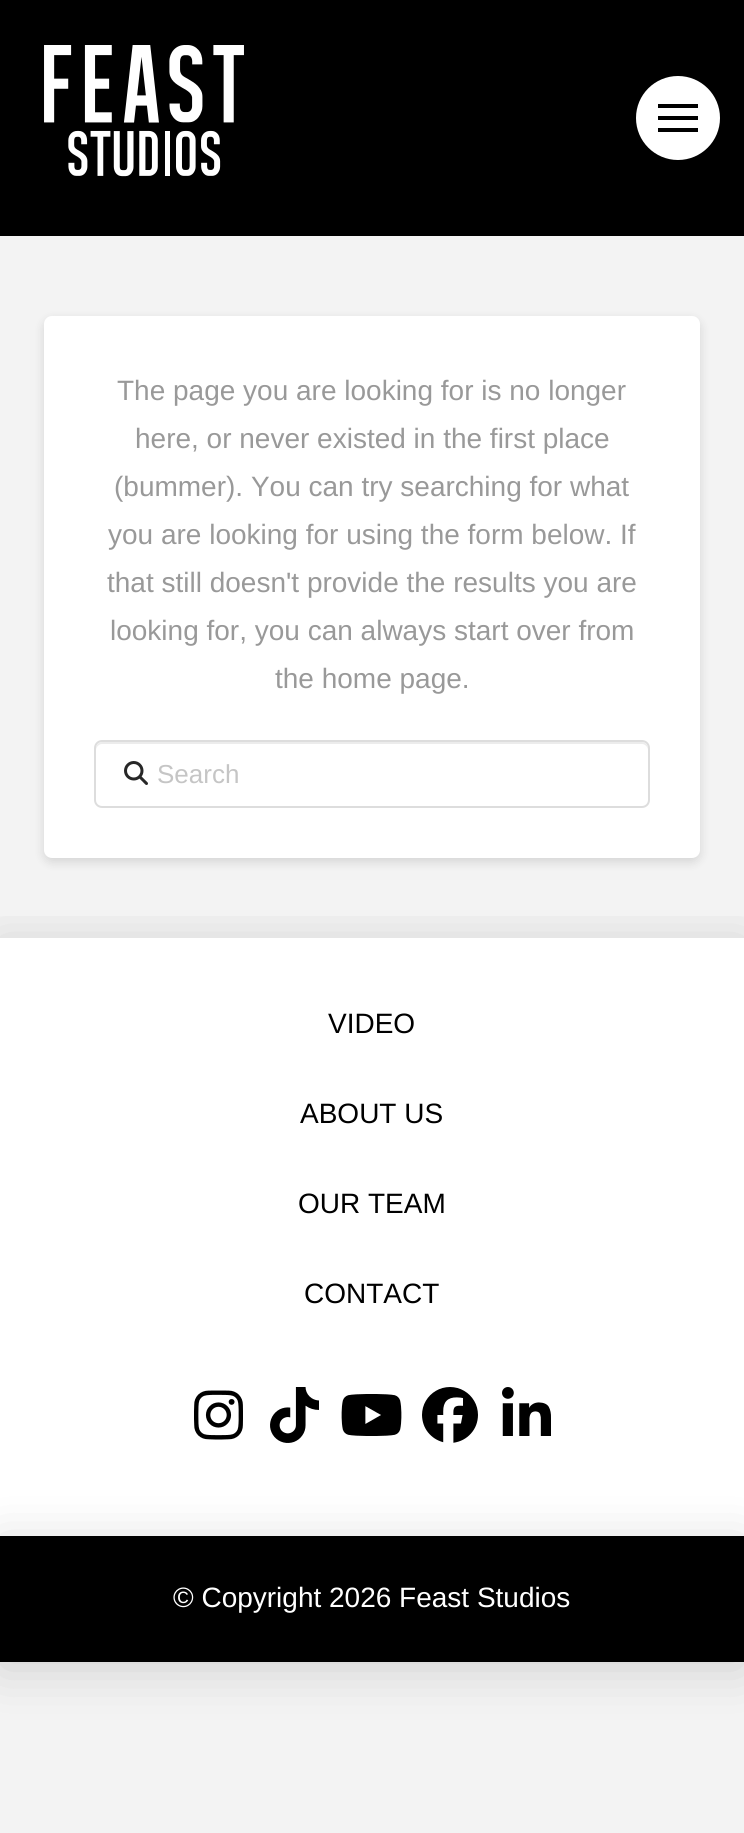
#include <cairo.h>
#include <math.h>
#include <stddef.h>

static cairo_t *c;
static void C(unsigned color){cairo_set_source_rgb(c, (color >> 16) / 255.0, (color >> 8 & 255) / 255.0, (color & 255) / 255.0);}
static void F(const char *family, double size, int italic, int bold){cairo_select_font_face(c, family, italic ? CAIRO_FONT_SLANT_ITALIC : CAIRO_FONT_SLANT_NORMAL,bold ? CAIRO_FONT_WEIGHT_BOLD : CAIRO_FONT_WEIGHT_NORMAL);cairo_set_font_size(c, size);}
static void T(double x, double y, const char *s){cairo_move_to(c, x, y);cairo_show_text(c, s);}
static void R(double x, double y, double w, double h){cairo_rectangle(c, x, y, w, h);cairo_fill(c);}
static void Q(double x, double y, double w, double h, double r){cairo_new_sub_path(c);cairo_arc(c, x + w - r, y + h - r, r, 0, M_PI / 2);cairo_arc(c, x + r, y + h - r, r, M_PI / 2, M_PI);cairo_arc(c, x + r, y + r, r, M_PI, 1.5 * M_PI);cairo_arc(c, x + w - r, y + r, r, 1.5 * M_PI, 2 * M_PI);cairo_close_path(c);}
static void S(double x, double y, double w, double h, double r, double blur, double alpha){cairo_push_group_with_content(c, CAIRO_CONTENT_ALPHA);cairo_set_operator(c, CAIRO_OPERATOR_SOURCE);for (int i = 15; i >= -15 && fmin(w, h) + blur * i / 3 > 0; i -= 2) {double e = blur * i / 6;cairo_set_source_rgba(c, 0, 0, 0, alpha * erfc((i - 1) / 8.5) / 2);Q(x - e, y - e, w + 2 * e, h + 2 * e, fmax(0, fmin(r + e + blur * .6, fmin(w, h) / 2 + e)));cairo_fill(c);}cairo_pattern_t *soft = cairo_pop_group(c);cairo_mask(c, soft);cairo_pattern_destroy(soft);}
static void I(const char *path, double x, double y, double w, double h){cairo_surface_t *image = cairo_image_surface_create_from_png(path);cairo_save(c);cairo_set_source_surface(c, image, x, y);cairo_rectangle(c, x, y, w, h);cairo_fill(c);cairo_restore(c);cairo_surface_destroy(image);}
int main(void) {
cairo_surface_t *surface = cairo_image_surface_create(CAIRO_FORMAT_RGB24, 744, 1833);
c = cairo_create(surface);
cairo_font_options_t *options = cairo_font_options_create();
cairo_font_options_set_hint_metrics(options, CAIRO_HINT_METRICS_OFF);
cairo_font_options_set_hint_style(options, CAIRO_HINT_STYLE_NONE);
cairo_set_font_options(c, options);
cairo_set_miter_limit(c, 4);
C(0xf3f3f3);
cairo_paint(c);
C(0x000000);
R(0,0,744,236);
I("1.png",44,45,200,132);
C(0xffffff);
cairo_arc(c,678,118,42,0,2 * M_PI);
cairo_fill(c);
C(0x000000);
R(658,104,40,4);
R(658,116,40,4);
R(658,128,40,4);
C(0x000000);
S(44,320,656,542,8,5,.13);
C(0xffffff);
Q(44,316,656,542,8);
cairo_fill(c);
F("Liberation Sans",28,0,0);
C(0x999999);
T(117,400,"The page you are looking for is no longer");
T(135,448,"here, or never existed in the first place");
T(114,496,"(bummer). You can try searching for what");
T(108,544,"you are looking for using the form below. If");
T(107,592,"that still doesn't provide the results you are");
T(110,640,"looking for, you can always start over from");
T(275,688,"the home page.");
C(0xececec);
cairo_new_path(c);
cairo_move_to(c,102,744);
cairo_line_to(c,642,744);
cairo_curve_to(c,645,744,648,747,648,750);
cairo_line_to(c,648,748);
cairo_curve_to(c,648,745,645,742,642,742);
cairo_line_to(c,102,742);
cairo_curve_to(c,99,742,96,745,96,748);
cairo_line_to(c,96,750);
cairo_curve_to(c,96,747,99,744,102,744);
cairo_close_path(c);
cairo_fill(c);
Q(95,741,554,66,7);
C(0xdddddd);
cairo_stroke(c);
I("2.png",124,761,24,24);
F("Liberation Sans",26,0,0);
C(0xc5c5c5);
T(157,783,"Search");
C(0xffffff);
R(0,938,744,598);
cairo_save(c);
cairo_rectangle(c,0,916,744,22);
cairo_clip(c);
C(0x000000);
S(0,944,744,598,0,25,.15);
cairo_restore(c);
F("Liberation Sans",28,0,0);
C(0x000000);
T(328,1033,"VIDEO");
T(300,1123,"ABOUT US");
T(298,1213,"OUR TEAM");
T(304,1303,"CONTACT");
I("3.png",194,1390,49,50);
I("4.png",270,1387,49,56);
I("5.png",341,1394,61,42);
I("6.png",422,1387,56,56);
I("7.png",502,1387,49,49);
C(0x000000);
S(0,1542,744,126,0,25,.15);
C(0x000000);
R(0,1536,744,126);
C(0xffffff);
T(173,1607,"© Copyright 2026 Feast Studios");
cairo_surface_write_to_png(surface, "o.png");
cairo_font_options_destroy(options);
cairo_destroy(c);
cairo_surface_destroy(surface);
return 0;
}
